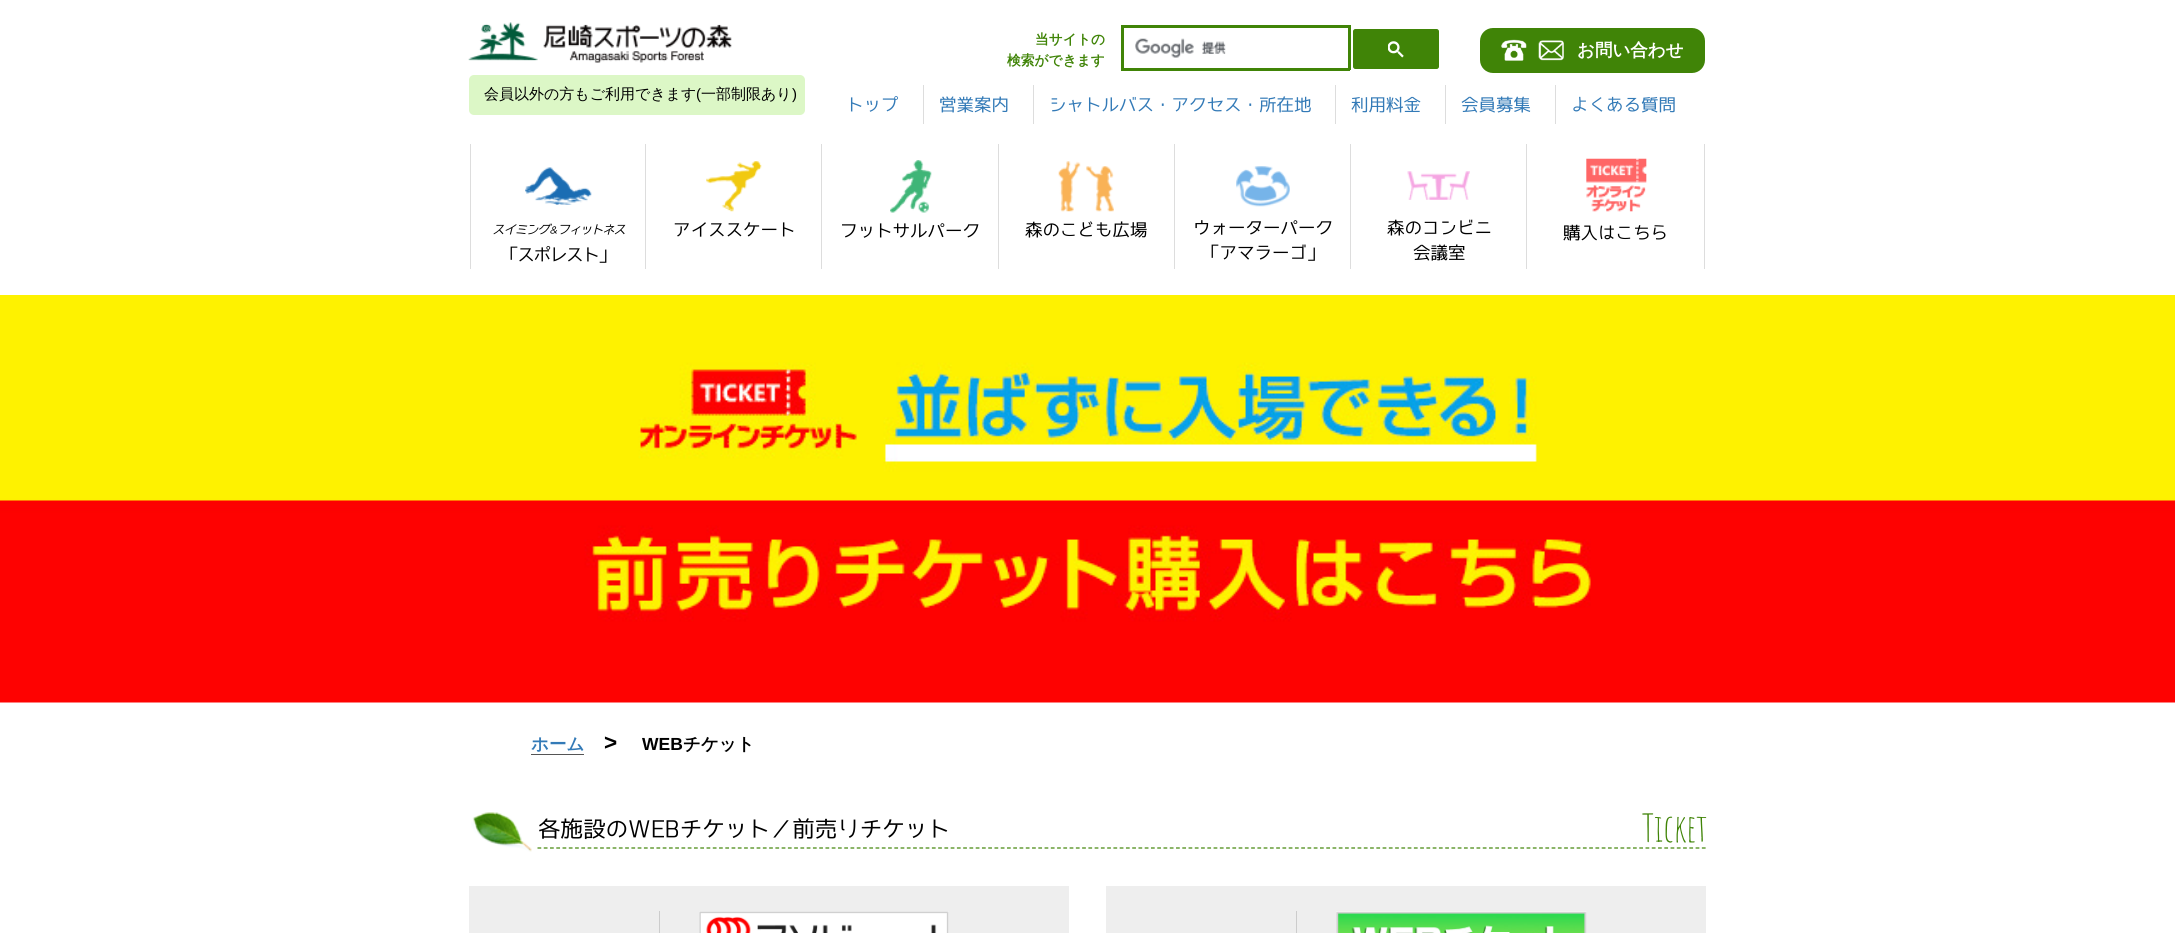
#include <cairo.h>
#include <math.h>
#include <stddef.h>

static cairo_t *c;
static void C(unsigned color){cairo_set_source_rgb(c, (color >> 16) / 255.0, (color >> 8 & 255) / 255.0, (color & 255) / 255.0);}
static void F(const char *family, double size, int italic, int bold){cairo_select_font_face(c, family, italic ? CAIRO_FONT_SLANT_ITALIC : CAIRO_FONT_SLANT_NORMAL,bold ? CAIRO_FONT_WEIGHT_BOLD : CAIRO_FONT_WEIGHT_NORMAL);cairo_set_font_size(c, size);}
static void T(double x, double y, const char *s){cairo_move_to(c, x, y);cairo_show_text(c, s);}
static void L(double x, double y, const char *s, double letter, double word){cairo_move_to(c, x, y);while (*s) {char ch[5] = {0};int n = 0;do ch[n++] = *s++; while ((*s & 0xC0) == 0x80);cairo_show_text(c, ch);cairo_rel_move_to(c, letter + word * (*ch == ' '), 0);}}
static void R(double x, double y, double w, double h){cairo_rectangle(c, x, y, w, h);cairo_fill(c);}
static void Q(double x, double y, double w, double h, double r){cairo_new_sub_path(c);cairo_arc(c, x + w - r, y + h - r, r, 0, M_PI / 2);cairo_arc(c, x + r, y + h - r, r, M_PI / 2, M_PI);cairo_arc(c, x + r, y + r, r, M_PI, 1.5 * M_PI);cairo_arc(c, x + w - r, y + r, r, 1.5 * M_PI, 2 * M_PI);cairo_close_path(c);}
static void I(const char *path, double x, double y, double w, double h){cairo_surface_t *image = cairo_image_surface_create_from_png(path);cairo_save(c);cairo_set_source_surface(c, image, x, y);cairo_rectangle(c, x, y, w, h);cairo_fill(c);cairo_restore(c);cairo_surface_destroy(image);}
int main(void) {
cairo_surface_t *surface = cairo_image_surface_create(CAIRO_FORMAT_RGB24, 2175, 933);
c = cairo_create(surface);
cairo_font_options_t *options = cairo_font_options_create();
cairo_font_options_set_hint_metrics(options, CAIRO_HINT_METRICS_OFF);
cairo_font_options_set_hint_style(options, CAIRO_HINT_STYLE_NONE);
cairo_set_font_options(c, options);
cairo_set_miter_limit(c, 4);
C(0xffffff);
cairo_paint(c);
I("1.png",468,22,264,41);
F("WenQuanYi Zen Hei",13.75,0,1);
C(0x408407);
T(1035,44,"当サイトの");
T(1007,65,"検索ができます");
R(1121,25,229,3);
R(1348,25,3,45);
R(1121,68,229,3);
R(1121,25,3,45);
I("2.png",1135,38,91,20);
Q(1353.5,29.5,85,39,2);
cairo_fill_preserve(c);
cairo_set_line_width(c,1);
cairo_stroke(c);
I("3.png",1388,41,16,17);
Q(1480,28,225,45,13);
cairo_fill(c);
I("4.png",1501,39,26,22);
I("5.png",1538,40,26,21);
F("WenQuanYi Zen Hei",17.5,0,1);
C(0xffffff);
T(1577,56,"お問い合わせ");
C(0xdcf7c6);
Q(469,75,336,40,5);
cairo_fill(c);
F("WenQuanYi Zen Hei Medium",15,0,0);
C(0x000000);
T(484,99,"会員以外の方もご利用できます");
F("Liberation Sans",15,0,0);
T(696,99,"(");
F("WenQuanYi Zen Hei Medium",15,0,0);
T(701,99,"一部制限あり");
F("Liberation Sans",15,0,0);
T(792,99,")");
F("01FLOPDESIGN",17.5,0,0);
C(0x337ab7);
T(846,111,"トップ");
C(0xdddddd);
R(923,85,1,39);
C(0x337ab7);
T(939,111,"営業案内");
C(0xdddddd);
R(1033,85,1,39);
C(0x337ab7);
T(1049,111,"シャトルバス・アクセス・所在地");
C(0xdddddd);
R(1335,85,1,39);
C(0x337ab7);
T(1351,111,"利用料金");
C(0xdddddd);
R(1445,85,1,39);
C(0x337ab7);
T(1461,111,"会員募集");
C(0xdddddd);
R(1555,85,1,39);
C(0x337ab7);
T(1571,111,"よくある質問");
C(0xdddddd);
R(645,144,1,125);
R(470,144,1,125);
I("6.png",525,167,67,38);
F("01FLOPDESIGN",12.5,1,0);
C(0x000000);
L(492,234,"スイミング",-1.25,0);
F("01FLOPDESIGN",10,1,0);
L(548,234,"＆",-1.25,0);
F("01FLOPDESIGN",12.5,1,0);
L(557,234,"フィットネス",-1.25,0);
F("01FLOPDESIGN",17.5,0,0);
L(501,261,"「スポレスト」",-1.25,0);
C(0xdddddd);
R(821,144,1,125);
I("7.png",706,161,56,51);
C(0x000000);
T(673,236,"アイススケート");
C(0xdddddd);
R(998,144,1,125);
I("8.png",890,160,42,53);
C(0x000000);
T(840,237,"フットサルパーク");
C(0xdddddd);
R(1174,144,1,125);
I("9.png",1058,161,56,51);
C(0x000000);
T(1025,236,"森のこども広場");
C(0xdddddd);
R(1350,144,1,125);
I("10.png",1236,166,54,41);
C(0x000000);
T(1193,234,"ウォーターパーク");
T(1202,259,"「アマラーゴ」");
C(0xdddddd);
R(1526,144,1,125);
I("11.png",1407,171,63,29);
C(0x000000);
T(1387,234,"森のコンビニ");
T(1413,259,"会議室");
C(0xdddddd);
R(1704,144,1,125);
I("12.png",1586,158,61,54);
C(0x000000);
T(1563,239,"購入はこちら");
I("13.png",0,295,2175,408);
F("WenQuanYi Zen Hei",17.5,0,1);
C(0x337ab7);
T(531,750,"ホーム");
C(0x555555);
R(531,754,53,1);
F("Liberation Sans",22.5,0,1);
C(0x000000);
T(604,750,">");
F("Liberation Sans",17.5,0,1);
T(642,750,"WEB");
F("WenQuanYi Zen Hei",17.5,0,1);
T(683,750,"チケット");
I("14.png",471,812,61,40);
cairo_new_path(c);
cairo_move_to(c,537.5,848);
cairo_line_to(c,1706,848);
C(0x408407);
cairo_set_line_width(c,1.2);
cairo_set_dash(c,(double[]){3.75,2.51},2,0);
cairo_stroke(c);
F("01FLOPDESIGN",22.5,0,0);
C(0x000000);
T(538,837,"各施設のWEBチケット／前売りチケット");
F("Amatic SC",38,0,0);
C(0x408407);
T(1642,842,"Ticket");
C(0xeeeeee);
R(469,886,600,47);
C(0xcccccc);
R(659,911,1,22);
I("15.png",699,911,250,22);
C(0xeeeeee);
R(1106,886,600,47);
C(0xcccccc);
R(1296,911,1,22);
I("16.png",1336,911,251,22);
cairo_surface_write_to_png(surface, "o.png");
cairo_font_options_destroy(options);
cairo_destroy(c);
cairo_surface_destroy(surface);
return 0;
}
